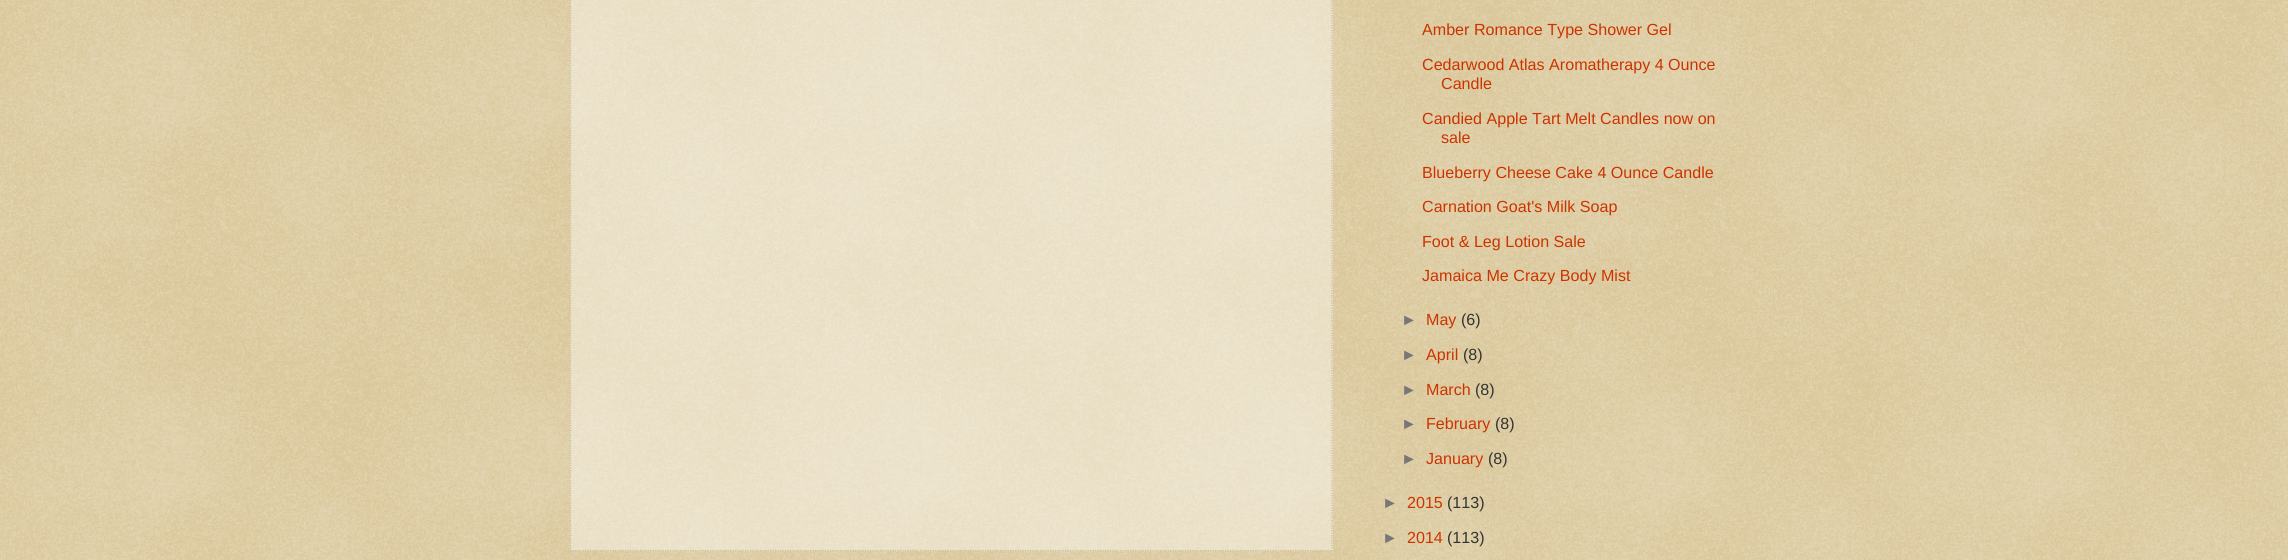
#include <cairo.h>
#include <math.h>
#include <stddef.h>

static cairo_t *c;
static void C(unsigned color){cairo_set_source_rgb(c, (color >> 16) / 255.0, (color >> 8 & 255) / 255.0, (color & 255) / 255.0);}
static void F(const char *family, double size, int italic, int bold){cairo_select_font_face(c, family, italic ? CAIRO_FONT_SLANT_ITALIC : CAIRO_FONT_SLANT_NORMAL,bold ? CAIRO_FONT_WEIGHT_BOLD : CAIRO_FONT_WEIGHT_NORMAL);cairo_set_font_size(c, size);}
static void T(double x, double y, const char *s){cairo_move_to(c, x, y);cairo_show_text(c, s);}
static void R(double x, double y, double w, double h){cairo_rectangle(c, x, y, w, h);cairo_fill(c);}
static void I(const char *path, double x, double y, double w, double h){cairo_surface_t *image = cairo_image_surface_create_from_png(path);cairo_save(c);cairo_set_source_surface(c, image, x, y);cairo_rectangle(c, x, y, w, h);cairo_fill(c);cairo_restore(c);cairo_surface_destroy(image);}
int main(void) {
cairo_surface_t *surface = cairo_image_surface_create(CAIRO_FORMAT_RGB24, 2288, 560);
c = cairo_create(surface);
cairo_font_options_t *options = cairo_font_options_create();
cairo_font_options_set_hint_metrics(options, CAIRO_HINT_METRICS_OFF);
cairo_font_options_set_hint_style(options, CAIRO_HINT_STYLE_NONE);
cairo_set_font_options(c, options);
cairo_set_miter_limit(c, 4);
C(0xc0a154);
cairo_paint(c);
I("1.png",0,0,2288,560);
cairo_set_source_rgba(c,1,1,1,0.4);
R(570,0,763,551);
cairo_new_path(c);
cairo_move_to(c,1332,-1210);
cairo_line_to(c,1332,551);
C(0xccbb99);
cairo_set_line_width(c,1.2);
cairo_set_dash(c,(double[]){1.25,1.25},2,0);
cairo_stroke(c);
cairo_new_path(c);
cairo_move_to(c,570,550.5);
cairo_line_to(c,1332.5,550.5);
cairo_stroke(c);
cairo_new_path(c);
cairo_move_to(c,570.5,-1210);
cairo_line_to(c,570.5,551);
cairo_stroke(c);
F("Liberation Sans",16.1,0,0);
C(0xcc3300);
T(1422,35,"Amber Romance Type Shower Gel");
T(1422,70,"Cedarwood Atlas Aromatherapy 4 Ounce");
T(1441,89,"Candle");
T(1422,124,"Candied Apple Tart Melt Candles now on");
T(1441,143,"sale");
T(1422,178,"Blueberry Cheese Cake 4 Ounce Candle");
T(1422,212,"Carnation Goat's Milk Soap");
T(1422,247,"Foot & Leg Lotion Sale");
T(1422,281,"Jamaica Me Crazy Body Mist");
C(0x777777);
T(1401,325,"►");
C(0xcc3300);
T(1426,325,"May");
C(0x333333);
T(1461,325,"(6)");
C(0x777777);
T(1401,360,"►");
C(0xcc3300);
T(1426,360,"April");
C(0x333333);
T(1463,360,"(8)");
C(0x777777);
T(1401,395,"►");
C(0xcc3300);
T(1426,395,"March");
C(0x333333);
T(1475,395,"(8)");
C(0x777777);
T(1401,429,"►");
C(0xcc3300);
T(1426,429,"February");
C(0x333333);
T(1495,429,"(8)");
C(0x777777);
T(1401,464,"►");
C(0xcc3300);
T(1426,464,"January");
C(0x333333);
T(1488,464,"(8)");
C(0x777777);
T(1382,508,"►");
C(0xcc3300);
T(1407,508,"2015");
C(0x333333);
T(1447,508,"(113)");
C(0x777777);
T(1382,543,"►");
C(0xcc3300);
T(1407,543,"2014");
C(0x333333);
T(1447,543,"(113)");
cairo_surface_write_to_png(surface, "o.png");
cairo_font_options_destroy(options);
cairo_destroy(c);
cairo_surface_destroy(surface);
return 0;
}
